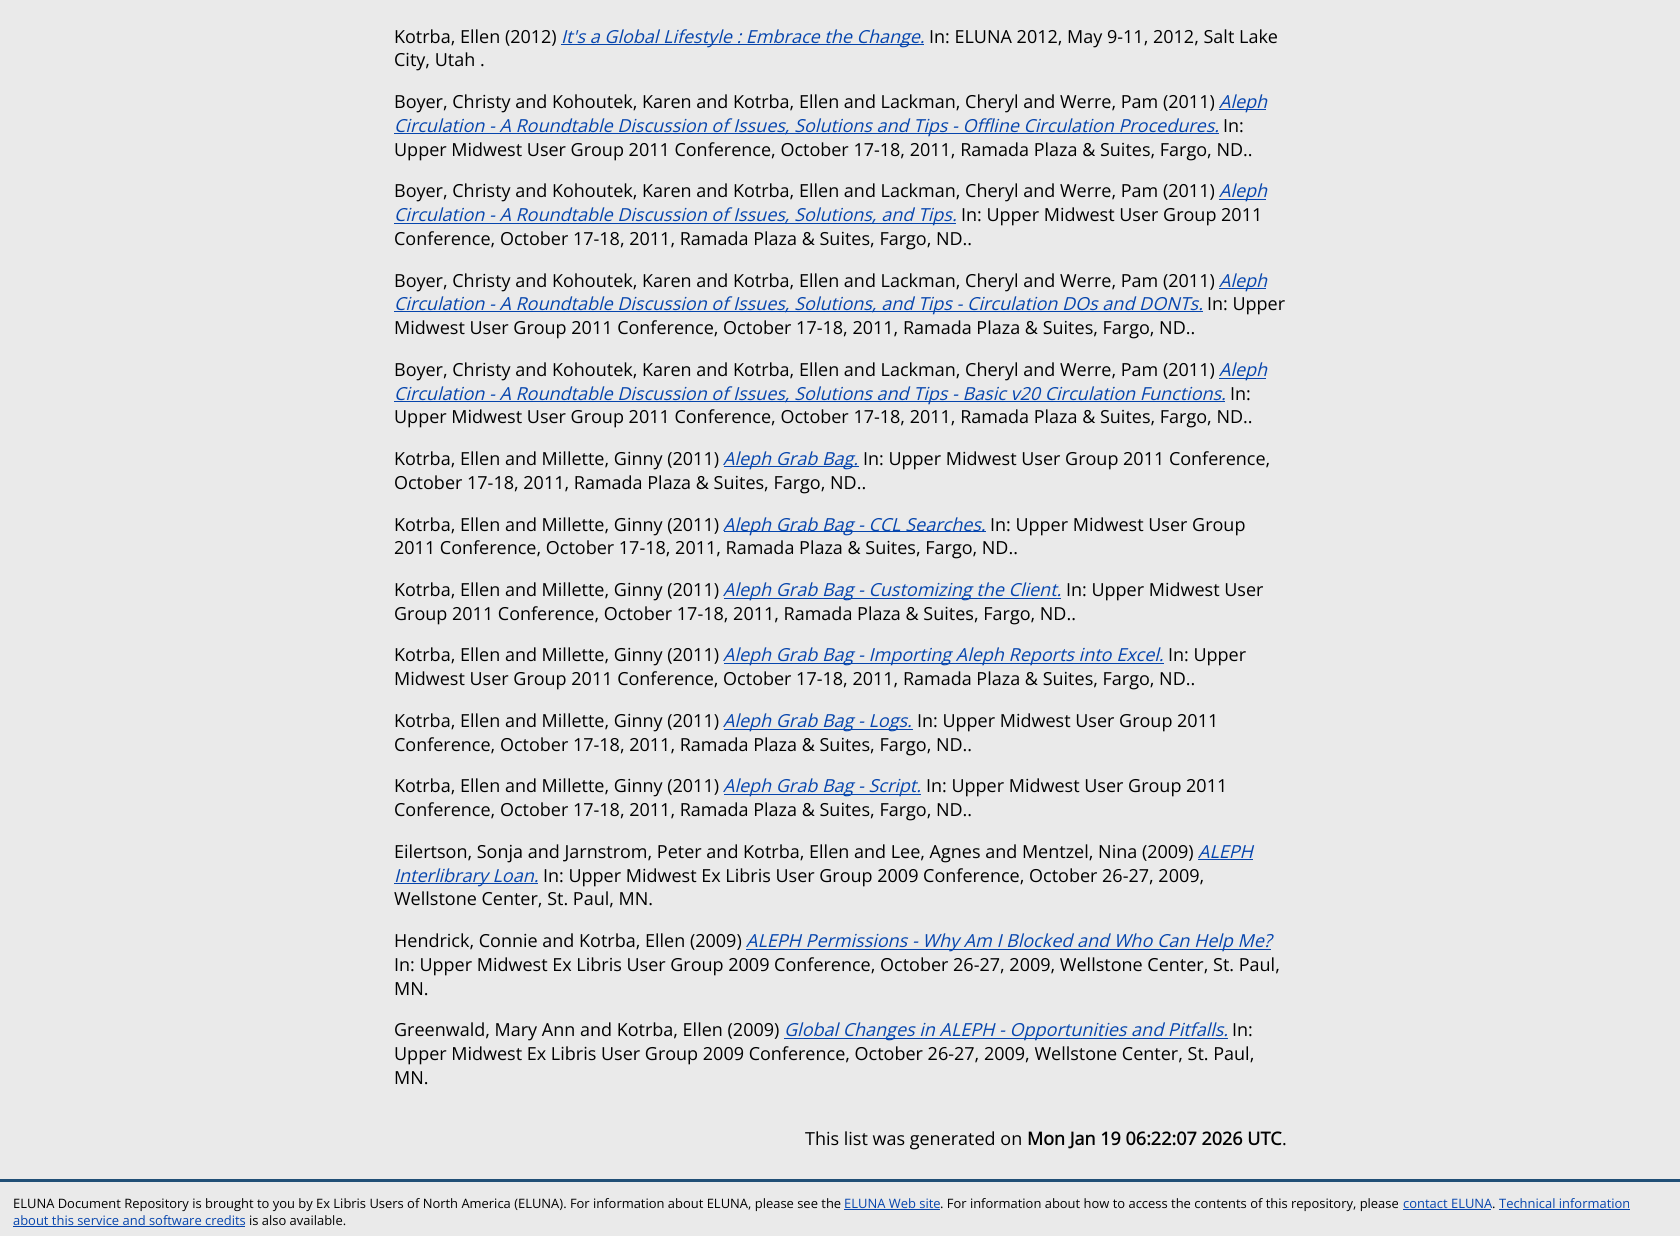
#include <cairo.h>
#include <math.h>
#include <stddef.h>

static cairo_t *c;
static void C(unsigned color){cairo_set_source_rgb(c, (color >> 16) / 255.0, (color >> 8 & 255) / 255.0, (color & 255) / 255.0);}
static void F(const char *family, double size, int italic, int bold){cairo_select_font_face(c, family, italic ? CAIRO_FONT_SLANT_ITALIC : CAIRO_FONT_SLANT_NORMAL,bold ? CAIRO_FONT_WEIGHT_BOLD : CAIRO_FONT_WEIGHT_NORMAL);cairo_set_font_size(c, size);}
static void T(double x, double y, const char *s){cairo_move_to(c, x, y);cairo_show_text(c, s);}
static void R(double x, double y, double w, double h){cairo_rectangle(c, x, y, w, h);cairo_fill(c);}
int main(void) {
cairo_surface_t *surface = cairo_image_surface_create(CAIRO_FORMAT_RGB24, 1680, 1236);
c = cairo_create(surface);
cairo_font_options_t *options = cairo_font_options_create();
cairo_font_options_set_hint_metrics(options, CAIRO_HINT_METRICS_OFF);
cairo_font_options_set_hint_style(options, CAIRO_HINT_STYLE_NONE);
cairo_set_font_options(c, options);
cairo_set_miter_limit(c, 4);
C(0xeaeaea);
cairo_paint(c);
F("Open Sans",18,0,0);
C(0x000000);
T(394,43,"Kotrba, Ellen (2012)");
C(0x0645ad);
R(561,44,363,1);
F("Open Sans",18,1,0);
T(561,43,"It's a Global Lifestyle : Embrace the Change.");
F("Open Sans",18,0,0);
C(0x000000);
T(929,43,"In: ELUNA 2012, May 9-11, 2012, Salt Lake");
T(394,66,"City, Utah .");
T(394,108,"Boyer, Christy and Kohoutek, Karen and Kotrba, Ellen and Lackman, Cheryl and Werre, Pam (2011)");
C(0x0645ad);
R(1219,109,47,1);
F("Open Sans",18,1,0);
T(1219,108,"Aleph");
R(394,133,825,1);
T(394,132,"Circulation - A Roundtable Discussion of Issues, Solutions and Tips - Offline Circulation Procedures.");
F("Open Sans",18,0,0);
C(0x000000);
T(1223,132,"In:");
T(394,156,"Upper Midwest User Group 2011 Conference, October 17-18, 2011, Ramada Plaza & Suites, Fargo, ND..");
T(394,197,"Boyer, Christy and Kohoutek, Karen and Kotrba, Ellen and Lackman, Cheryl and Werre, Pam (2011)");
C(0x0645ad);
R(1219,199,47,1);
F("Open Sans",18,1,0);
T(1219,197,"Aleph");
R(394,223,562,1);
T(394,221,"Circulation - A Roundtable Discussion of Issues, Solutions, and Tips.");
F("Open Sans",18,0,0);
C(0x000000);
T(961,221,"In: Upper Midwest User Group 2011");
T(394,245,"Conference, October 17-18, 2011, Ramada Plaza & Suites, Fargo, ND..");
T(394,287,"Boyer, Christy and Kohoutek, Karen and Kotrba, Ellen and Lackman, Cheryl and Werre, Pam (2011)");
C(0x0645ad);
R(1219,288,47,1);
F("Open Sans",18,1,0);
T(1219,287,"Aleph");
R(394,311,809,1);
T(394,310,"Circulation - A Roundtable Discussion of Issues, Solutions, and Tips - Circulation DOs and DONTs.");
F("Open Sans",18,0,0);
C(0x000000);
T(1207,310,"In: Upper");
T(394,334,"Midwest User Group 2011 Conference, October 17-18, 2011, Ramada Plaza & Suites, Fargo, ND..");
T(394,376,"Boyer, Christy and Kohoutek, Karen and Kotrba, Ellen and Lackman, Cheryl and Werre, Pam (2011)");
C(0x0645ad);
R(1219,378,47,1);
F("Open Sans",18,1,0);
T(1219,376,"Aleph");
R(394,401,831,1);
T(394,400,"Circulation - A Roundtable Discussion of Issues, Solutions and Tips - Basic v20 Circulation Functions.");
F("Open Sans",18,0,0);
C(0x000000);
T(1230,400,"In:");
T(394,423,"Upper Midwest User Group 2011 Conference, October 17-18, 2011, Ramada Plaza & Suites, Fargo, ND..");
T(394,465,"Kotrba, Ellen and Millette, Ginny (2011)");
C(0x0645ad);
R(724,466,135,1);
F("Open Sans",18,1,0);
T(723,465,"Aleph Grab Bag.");
F("Open Sans",18,0,0);
C(0x000000);
T(863,465,"In: Upper Midwest User Group 2011 Conference,");
T(394,489,"October 17-18, 2011, Ramada Plaza & Suites, Fargo, ND..");
T(394,531,"Kotrba, Ellen and Millette, Ginny (2011)");
C(0x0645ad);
R(724,531,262,1);
F("Open Sans",18,1,0);
T(723,531,"Aleph Grab Bag - CCL Searches.");
F("Open Sans",18,0,0);
C(0x000000);
T(990,531,"In: Upper Midwest User Group");
T(394,554,"2011 Conference, October 17-18, 2011, Ramada Plaza & Suites, Fargo, ND..");
T(394,596,"Kotrba, Ellen and Millette, Ginny (2011)");
C(0x0645ad);
R(724,598,337,1);
F("Open Sans",18,1,0);
T(723,596,"Aleph Grab Bag - Customizing the Client.");
F("Open Sans",18,0,0);
C(0x000000);
T(1066,596,"In: Upper Midwest User");
T(394,620,"Group 2011 Conference, October 17-18, 2011, Ramada Plaza & Suites, Fargo, ND..");
T(394,661,"Kotrba, Ellen and Millette, Ginny (2011)");
C(0x0645ad);
R(724,663,440,1);
F("Open Sans",18,1,0);
T(723,661,"Aleph Grab Bag - Importing Aleph Reports into Excel.");
F("Open Sans",18,0,0);
C(0x000000);
T(1168,661,"In: Upper");
T(394,685,"Midwest User Group 2011 Conference, October 17-18, 2011, Ramada Plaza & Suites, Fargo, ND..");
T(394,727,"Kotrba, Ellen and Millette, Ginny (2011)");
C(0x0645ad);
R(724,729,189,1);
F("Open Sans",18,1,0);
T(723,727,"Aleph Grab Bag - Logs.");
F("Open Sans",18,0,0);
C(0x000000);
T(917,727,"In: Upper Midwest User Group 2011");
T(394,751,"Conference, October 17-18, 2011, Ramada Plaza & Suites, Fargo, ND..");
T(394,792,"Kotrba, Ellen and Millette, Ginny (2011)");
C(0x0645ad);
R(724,794,197,1);
F("Open Sans",18,1,0);
T(723,792,"Aleph Grab Bag - Script.");
F("Open Sans",18,0,0);
C(0x000000);
T(926,792,"In: Upper Midwest User Group 2011");
T(394,816,"Conference, October 17-18, 2011, Ramada Plaza & Suites, Fargo, ND..");
T(394,858,"Eilertson, Sonja and Jarnstrom, Peter and Kotrba, Ellen and Lee, Agnes and Mentzel, Nina (2009)");
F("Open Sans",18,1,0);
C(0x0645ad);
T(1198,858,"ALEPH");
R(1198,859,55,1);
R(394,883,144,1);
T(394,882,"Interlibrary Loan.");
F("Open Sans",18,0,0);
C(0x000000);
T(543,882,"In: Upper Midwest Ex Libris User Group 2009 Conference, October 26-27, 2009,");
T(394,905,"Wellstone Center, St. Paul, MN.");
T(394,947,"Hendrick, Connie and Kotrba, Ellen (2009)");
C(0x0645ad);
R(746,949,525,1);
F("Open Sans",18,1,0);
T(746,947,"ALEPH Permissions - Why Am I Blocked and Who Can Help Me?");
F("Open Sans",18,0,0);
C(0x000000);
T(394,971,"In: Upper Midwest Ex Libris User Group 2009 Conference, October 26-27, 2009, Wellstone Center, St. Paul,");
T(394,995,"MN.");
T(394,1036,"Greenwald, Mary Ann and Kotrba, Ellen (2009)");
C(0x0645ad);
R(784,1038,444,1);
F("Open Sans",18,1,0);
T(784,1036,"Global Changes in ALEPH - Opportunities and Pitfalls.");
F("Open Sans",18,0,0);
C(0x000000);
T(1232,1036,"In:");
T(394,1060,"Upper Midwest Ex Libris User Group 2009 Conference, October 26-27, 2009, Wellstone Center, St. Paul,");
T(394,1084,"MN.");
T(805,1145,"This list was generated on");
F("Open Sans",18,0,1);
T(1027,1145,"Mon Jan 19 06:22:07 2026 UTC");
F("Open Sans",18,0,0);
T(1282,1145,".");
C(0x204f76);
R(0,1179,1680,3);
F("Open Sans",12.95,0,0);
C(0x000000);
T(13,1208,"ELUNA Document Repository is brought to you by Ex Libris Users of North America (ELUNA). For information about ELUNA, please see the");
C(0x0645ad);
T(844,1208,"ELUNA Web site");
R(844,1209,96,1);
C(0x000000);
T(940,1208,". For information about how to access the contents of this repository, please");
C(0x0645ad);
T(1403,1208,"contact ELUNA");
R(1403,1209,88,1);
C(0x000000);
T(1492,1208,".");
C(0x0645ad);
T(1499,1208,"Technical information");
R(1499,1209,131,1);
T(13,1225,"about this service and software credits");
R(13,1226,232,1);
C(0x000000);
T(249,1225,"is also available.");
cairo_surface_write_to_png(surface, "o.png");
cairo_font_options_destroy(options);
cairo_destroy(c);
cairo_surface_destroy(surface);
return 0;
}
